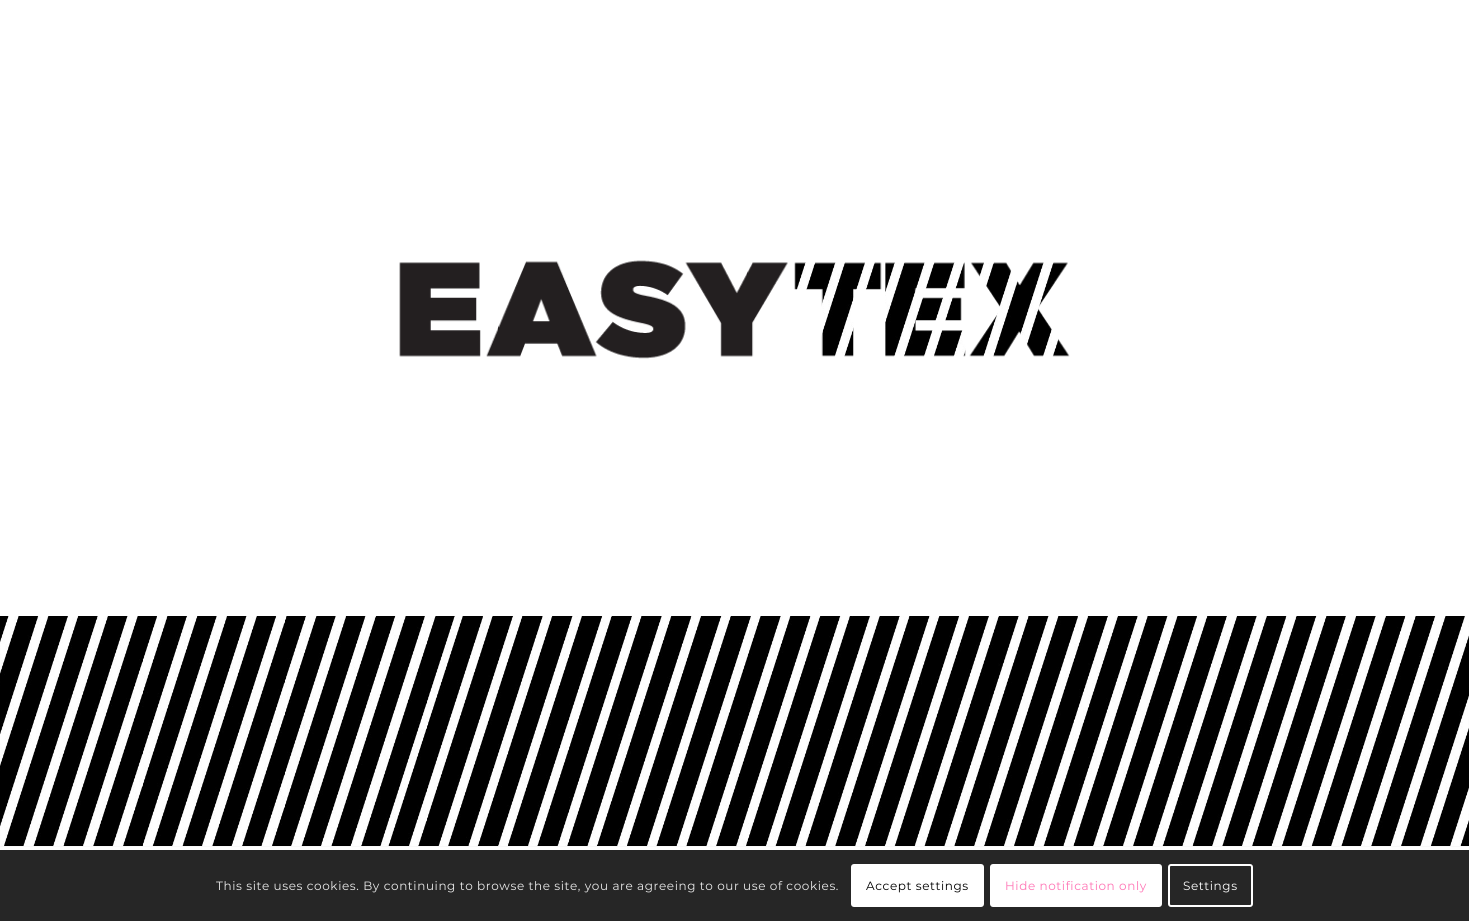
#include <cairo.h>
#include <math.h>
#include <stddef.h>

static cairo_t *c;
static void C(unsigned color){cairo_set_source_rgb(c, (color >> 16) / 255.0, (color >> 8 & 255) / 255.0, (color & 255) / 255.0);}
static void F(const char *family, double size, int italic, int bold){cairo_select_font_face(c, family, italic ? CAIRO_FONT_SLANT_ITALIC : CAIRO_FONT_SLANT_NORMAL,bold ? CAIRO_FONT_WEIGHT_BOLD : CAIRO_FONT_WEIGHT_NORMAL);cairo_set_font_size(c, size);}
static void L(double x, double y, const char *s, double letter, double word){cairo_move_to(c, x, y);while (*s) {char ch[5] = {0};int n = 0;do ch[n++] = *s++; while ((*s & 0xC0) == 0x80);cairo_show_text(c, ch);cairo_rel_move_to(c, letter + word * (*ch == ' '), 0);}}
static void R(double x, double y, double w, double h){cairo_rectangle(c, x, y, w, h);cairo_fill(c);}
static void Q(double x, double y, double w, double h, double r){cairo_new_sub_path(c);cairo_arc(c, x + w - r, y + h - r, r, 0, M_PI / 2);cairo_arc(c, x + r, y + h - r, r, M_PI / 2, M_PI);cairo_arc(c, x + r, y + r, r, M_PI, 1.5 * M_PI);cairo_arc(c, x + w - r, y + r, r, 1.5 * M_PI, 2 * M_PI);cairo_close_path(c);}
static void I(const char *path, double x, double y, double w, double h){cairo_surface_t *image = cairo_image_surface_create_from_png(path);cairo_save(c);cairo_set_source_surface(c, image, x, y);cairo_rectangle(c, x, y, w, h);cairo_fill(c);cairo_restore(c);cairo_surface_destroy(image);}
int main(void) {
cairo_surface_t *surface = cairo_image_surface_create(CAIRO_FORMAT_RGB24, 1469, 921);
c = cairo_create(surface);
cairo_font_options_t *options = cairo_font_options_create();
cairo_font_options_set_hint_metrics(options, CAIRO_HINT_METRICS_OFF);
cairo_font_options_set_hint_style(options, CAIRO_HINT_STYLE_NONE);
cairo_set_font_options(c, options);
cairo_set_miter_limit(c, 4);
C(0xffffff);
cairo_paint(c);
I("1.png",794,262,276,95);
I("2.png",0,0,1469,616);
I("3.png",0,616,1469,230);
C(0xf8f8f8);
R(0,846,1469,1);
C(0x262626);
R(0,850,1469,71);
F("Montserrat Thin",12,0,0);
C(0xe9e9e9);
L(216,890,"This site uses cookies. By continuing to browse the site, you are agreeing to our use of cookies.",.6,0);
C(0xffffff);
Q(851,864,133,43,3);
cairo_fill(c);
C(0x000000);
L(866,890,"Accept settings",.6,0);
C(0xffffff);
Q(991,865,170,41,2);
cairo_fill_preserve(c);
cairo_stroke(c);
C(0xff75b5);
L(1005,890,"Hide notification only",.6,0);
Q(1169,865,83,41,2);
C(0xffffff);
cairo_stroke(c);
L(1183,890,"Settings",.6,0);
cairo_surface_write_to_png(surface, "o.png");
cairo_font_options_destroy(options);
cairo_destroy(c);
cairo_surface_destroy(surface);
return 0;
}
